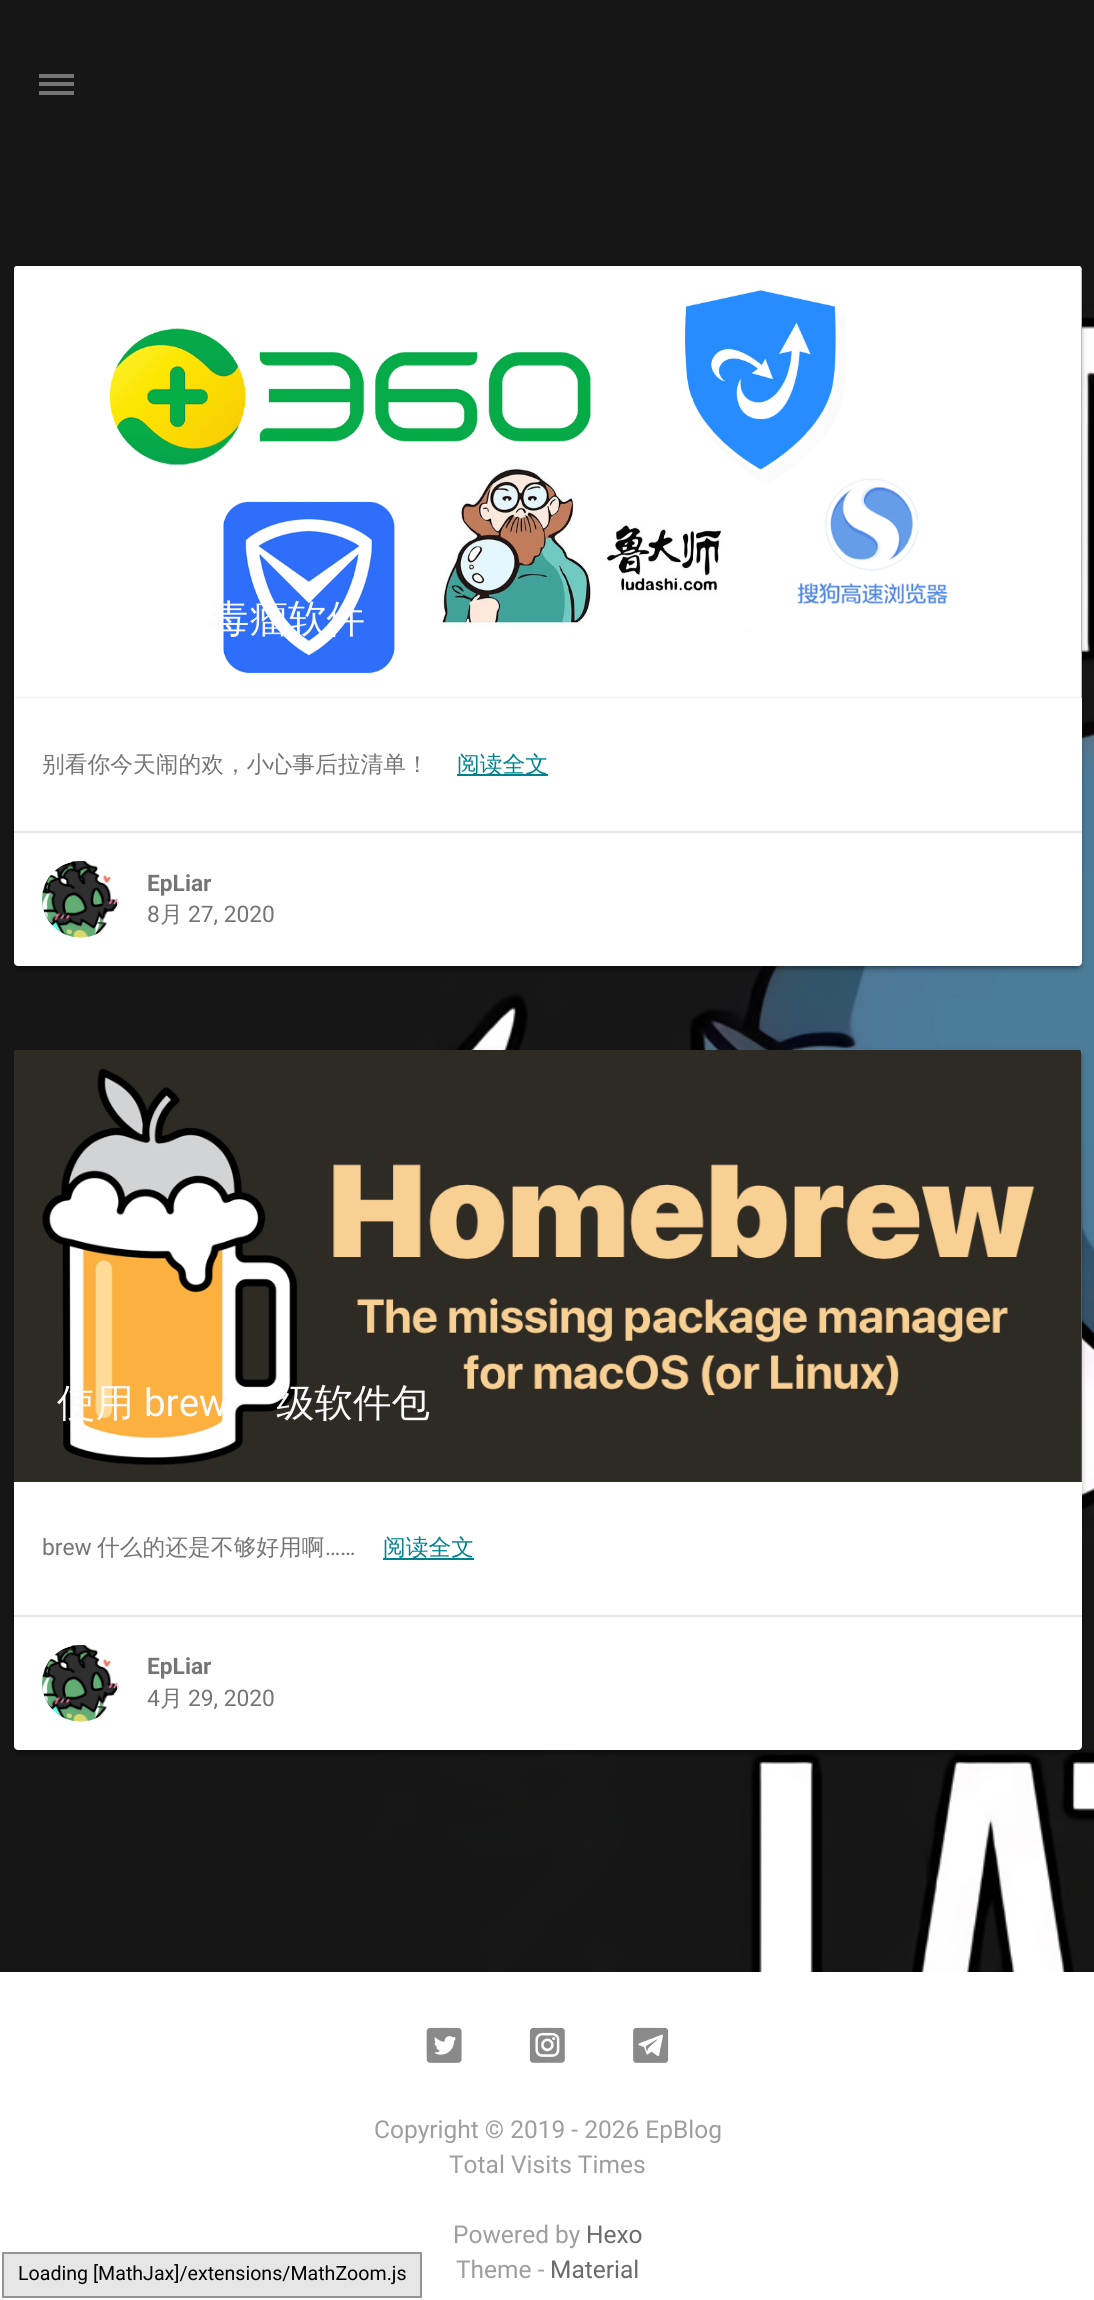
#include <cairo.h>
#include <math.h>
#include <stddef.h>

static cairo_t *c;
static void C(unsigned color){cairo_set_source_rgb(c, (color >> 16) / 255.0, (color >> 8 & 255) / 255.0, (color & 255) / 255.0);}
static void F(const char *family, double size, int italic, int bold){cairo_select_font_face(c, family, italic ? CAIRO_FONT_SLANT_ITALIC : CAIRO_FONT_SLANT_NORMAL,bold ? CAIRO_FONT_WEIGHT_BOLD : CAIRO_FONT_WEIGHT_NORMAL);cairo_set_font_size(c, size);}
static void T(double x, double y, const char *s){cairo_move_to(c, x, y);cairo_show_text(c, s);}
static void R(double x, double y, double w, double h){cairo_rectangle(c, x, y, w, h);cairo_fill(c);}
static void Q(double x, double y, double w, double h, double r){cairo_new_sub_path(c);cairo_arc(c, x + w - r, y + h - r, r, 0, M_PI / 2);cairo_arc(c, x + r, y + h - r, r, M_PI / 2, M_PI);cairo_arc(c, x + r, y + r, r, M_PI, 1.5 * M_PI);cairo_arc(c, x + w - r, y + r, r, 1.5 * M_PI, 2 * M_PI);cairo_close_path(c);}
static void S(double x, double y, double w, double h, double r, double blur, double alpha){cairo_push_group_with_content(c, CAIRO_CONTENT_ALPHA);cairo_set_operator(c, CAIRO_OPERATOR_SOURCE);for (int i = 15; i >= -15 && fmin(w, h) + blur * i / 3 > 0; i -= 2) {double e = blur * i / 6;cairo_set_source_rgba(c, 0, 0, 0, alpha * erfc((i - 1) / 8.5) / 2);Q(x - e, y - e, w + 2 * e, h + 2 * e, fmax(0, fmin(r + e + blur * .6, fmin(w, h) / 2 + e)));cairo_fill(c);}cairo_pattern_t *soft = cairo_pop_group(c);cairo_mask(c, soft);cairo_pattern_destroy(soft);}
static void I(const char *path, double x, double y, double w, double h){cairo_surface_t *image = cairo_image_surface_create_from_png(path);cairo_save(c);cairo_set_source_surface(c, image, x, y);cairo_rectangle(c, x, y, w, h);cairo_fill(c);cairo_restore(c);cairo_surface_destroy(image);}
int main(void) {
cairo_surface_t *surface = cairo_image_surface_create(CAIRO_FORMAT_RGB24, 1094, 2300);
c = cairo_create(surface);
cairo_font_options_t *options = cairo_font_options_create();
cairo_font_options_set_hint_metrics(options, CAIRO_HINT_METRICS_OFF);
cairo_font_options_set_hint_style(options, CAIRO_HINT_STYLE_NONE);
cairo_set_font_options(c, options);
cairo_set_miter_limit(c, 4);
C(0xffffff);
cairo_paint(c);
I("1.png",0,0,1094,1972);
C(0x757575);
R(39,82,35,4);
R(39,74,35,4);
R(39,91,35,4);
C(0x000000);
S(14,268,1068,700,4,4.5,.12);
S(18,275,1060,693,0,1,.2);
S(14,270,1068,700,4,2,.14);
C(0xffffff);
Q(14,266,1068,700,4);
cairo_fill(c);
C(0x0097a7);
cairo_new_path(c);
cairo_move_to(c,18,266);
cairo_line_to(c,1078,266);
cairo_curve_to(c,1080,266,1082,268,1082,270);
cairo_line_to(c,1082,698);
cairo_line_to(c,14,698);
cairo_line_to(c,14,270);
cairo_curve_to(c,14,268,16,266,18,266);
cairo_close_path(c);
cairo_fill(c);
I("2.png",14,266,1068,432);
F("WenQuanYi Zen Hei Medium",38.5,0,0);
C(0xfafafa);
T(211,632,"毒瘤软件");
F("WenQuanYi Zen Hei Medium",22.75,0,0);
C(0x757575);
T(42,772,"别看你今天闹的欢，小心事后拉清单！");
C(0x00838f);
R(457,774,91,2);
T(457,772,"阅读全文");
C(0xe6e6e6);
R(14,831,1068,2);
I("3.png",42,860,77,78);
F("Roboto",22.75,0,1);
C(0x757575);
T(147,891,"EpLiar");
F("Roboto",22.75,0,0);
T(147,922,"8");
F("WenQuanYi Zen Hei Medium",22.75,0,0);
T(160,922,"月");
F("Roboto",22.75,0,0);
T(188,922,"27, 2020");
C(0x000000);
S(14,1052,1068,700,4,4.5,.12);
S(18,1059,1060,693,0,1,.2);
S(14,1054,1068,700,4,2,.14);
C(0xffffff);
Q(14,1050,1068,700,4);
cairo_fill(c);
C(0x0097a7);
cairo_new_path(c);
cairo_move_to(c,18,1050);
cairo_line_to(c,1078,1050);
cairo_curve_to(c,1080,1050,1082,1052,1082,1054);
cairo_line_to(c,1082,1482);
cairo_line_to(c,14,1482);
cairo_line_to(c,14,1054);
cairo_curve_to(c,14,1052,16,1050,18,1050);
cairo_close_path(c);
cairo_fill(c);
I("4.png",14,1050,1068,432);
F("WenQuanYi Zen Hei Medium",38.5,0,0);
C(0xfafafa);
T(57,1416,"使用");
F("Roboto",38.5,0,0);
T(144,1416,"brew");
F("WenQuanYi Zen Hei Medium",38.5,0,0);
T(276,1416,"级软件包");
F("Roboto",22.75,0,0);
C(0x757575);
T(42,1555,"brew");
F("WenQuanYi Zen Hei Medium",22.75,0,0);
T(97,1555,"什么的还是不够好用啊");
F("Roboto",22.75,0,0);
T(325,1555,"……");
C(0x00838f);
R(383,1558,91,2);
F("WenQuanYi Zen Hei Medium",22.75,0,0);
T(383,1555,"阅读全文");
C(0xe6e6e6);
R(14,1615,1068,2);
I("3.png",42,1644,77,78);
F("Roboto",22.75,0,1);
C(0x757575);
T(147,1674,"EpLiar");
F("Roboto",22.75,0,0);
T(147,1706,"4");
F("WenQuanYi Zen Hei Medium",22.75,0,0);
T(160,1706,"月");
F("Roboto",22.75,0,0);
T(188,1706,"29, 2020");
I("5.png",426,2027,36,36);
I("6.png",529,2027,36,36);
I("7.png",633,2027,36,36);
F("Roboto",24.5,0,0);
C(0x9e9e9e);
T(374,2138,"Copyright © 2019 - 2026 EpBlog");
T(449,2173,"Total Visits Times");
T(453,2243,"Powered by");
C(0x6b6b6b);
T(586,2243,"Hexo");
C(0x9e9e9e);
T(456,2278,"Theme -");
C(0x6b6b6b);
T(550,2278,"Material");
C(0xe6e6e6);
cairo_rectangle(c,3,2253,418,44);
cairo_fill_preserve(c);
C(0x959595);
cairo_stroke(c);
F("Roboto",19.6,0,0);
C(0x000000);
T(18,2280,"Loading [MathJax]/extensions/MathZoom.js");
cairo_surface_write_to_png(surface, "o.png");
cairo_font_options_destroy(options);
cairo_destroy(c);
cairo_surface_destroy(surface);
return 0;
}
